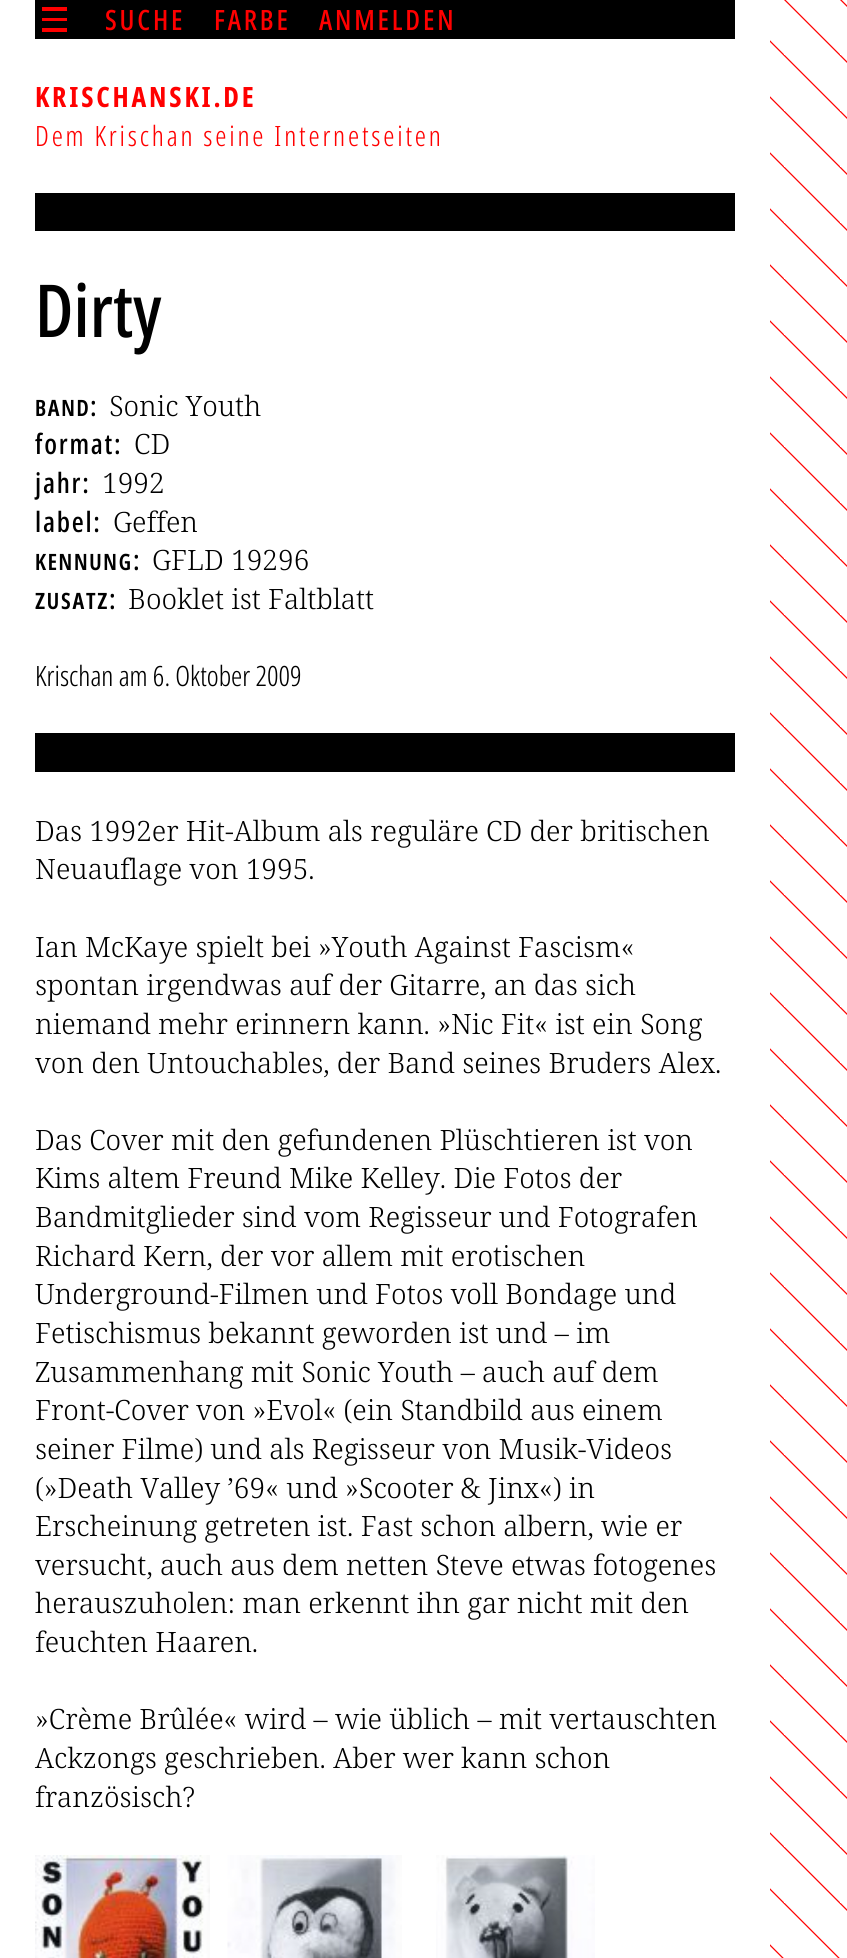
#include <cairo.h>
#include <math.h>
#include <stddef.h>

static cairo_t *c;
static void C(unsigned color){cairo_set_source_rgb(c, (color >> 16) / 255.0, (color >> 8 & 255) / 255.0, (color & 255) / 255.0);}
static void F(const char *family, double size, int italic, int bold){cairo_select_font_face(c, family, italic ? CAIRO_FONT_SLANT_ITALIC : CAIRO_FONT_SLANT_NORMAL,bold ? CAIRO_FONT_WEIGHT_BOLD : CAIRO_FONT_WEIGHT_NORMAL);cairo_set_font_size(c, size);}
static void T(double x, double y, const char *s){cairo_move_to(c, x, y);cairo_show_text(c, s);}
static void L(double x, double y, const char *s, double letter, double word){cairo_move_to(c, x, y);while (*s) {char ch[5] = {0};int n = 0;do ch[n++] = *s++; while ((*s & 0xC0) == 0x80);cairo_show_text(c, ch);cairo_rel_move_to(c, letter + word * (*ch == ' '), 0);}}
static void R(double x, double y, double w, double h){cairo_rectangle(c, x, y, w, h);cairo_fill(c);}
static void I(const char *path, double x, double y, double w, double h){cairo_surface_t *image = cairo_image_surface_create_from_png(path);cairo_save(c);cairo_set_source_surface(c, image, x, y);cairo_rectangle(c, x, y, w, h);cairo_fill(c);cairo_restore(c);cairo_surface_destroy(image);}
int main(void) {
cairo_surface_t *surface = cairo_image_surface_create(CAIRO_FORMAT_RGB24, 847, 1958);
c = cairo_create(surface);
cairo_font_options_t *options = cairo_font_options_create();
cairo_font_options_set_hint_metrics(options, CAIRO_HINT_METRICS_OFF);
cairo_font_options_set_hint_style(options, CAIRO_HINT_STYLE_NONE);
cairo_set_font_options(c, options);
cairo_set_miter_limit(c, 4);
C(0xff0000);
cairo_paint(c);
I("1.png",770,0,77,1958);
C(0xffffff);
R(0,0,770,1958);
C(0x000000);
R(35,0,700,39);
C(0xff0000);
R(42,7,25,4);
R(42,18,25,3);
R(42,28,25,4);
F("Noto Sans Medium",28,0,0);
L(105,30,"SUCHE",2.8,0);
L(214,30,"FARBE",2.8,0);
L(319,30,"ANMELDEN",2.8,0);
F("Noto Sans",28,0,1);
L(35,107,"KRISCHANSKI.DE",2.8,0);
F("Noto Sans Light",28,0,0);
L(35,146,"Dem Krischan seine Internetseiten",2.8,0);
C(0x000000);
R(35,193,700,38);
F("Noto Sans Medium",73,0,0);
T(35,337,"Dirty");
F("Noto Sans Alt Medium",28,0,0);
L(35,416,"band",1.75,0);
F("Noto Sans Medium",28,0,0);
L(90,416,":",1.75,0);
F("Noto Serif Light",28,0,0);
T(109,416,"Sonic Youth");
F("Noto Sans Medium",28,0,0);
L(35,454,"format:",1.75,0);
F("Noto Serif Light",28,0,0);
T(134,454,"CD");
F("Noto Sans Medium",28,0,0);
L(35,493,"jahr:",1.75,0);
F("Noto Serif Light",28,0,0);
T(102,493,"1992");
F("Noto Sans Medium",28,0,0);
L(35,532,"label:",1.75,0);
F("Noto Serif Light",28,0,0);
T(113,532,"Geffen");
F("Noto Sans Alt Medium",28,0,0);
L(35,570,"kennung",1.75,0);
F("Noto Sans Medium",28,0,0);
L(133,570,":",1.75,0);
F("Noto Serif Light",28,0,0);
T(152,570,"GFLD 19296");
F("Noto Sans Alt Medium",28,0,0);
L(35,609,"zusatz",1.75,0);
F("Noto Sans Medium",28,0,0);
L(109,609,":",1.75,0);
F("Noto Serif Light",28,0,0);
T(128,609,"Booklet ist Faltblatt");
F("Noto Sans Light",28,0,0);
T(35,686,"Krischan am 6. Oktober 2009");
R(35,733,700,39);
F("Noto Serif Light",28,0,0);
T(35,841,"Das 1992er Hit-Album als reguläre CD der britischen");
T(35,879,"Neuauflage von 1995.");
T(35,957,"Ian McKaye spielt bei »Youth Against Fascism«");
T(35,995,"spontan irgendwas auf der Gitarre, an das sich");
T(35,1034,"niemand mehr erinnern kann. »Nic Fit« ist ein Song");
T(35,1073,"von den Untouchables, der Band seines Bruders Alex.");
T(35,1150,"Das Cover mit den gefundenen Plüschtieren ist von");
T(35,1188,"Kims altem Freund Mike Kelley. Die Fotos der");
T(35,1227,"Bandmitglieder sind vom Regisseur und Fotografen");
T(35,1266,"Richard Kern, der vor allem mit erotischen");
T(35,1304,"Underground-Filmen und Fotos voll Bondage und");
T(35,1343,"Fetischismus bekannt geworden ist und – im");
T(35,1382,"Zusammenhang mit Sonic Youth – auch auf dem");
T(35,1420,"Front-Cover von »Evol« (ein Standbild aus einem");
T(35,1459,"seiner Filme) und als Regisseur von Musik-Videos");
T(35,1498,"(»Death Valley ’69« und »Scooter & Jinx«) in");
T(35,1536,"Erscheinung getreten ist. Fast schon albern, wie er");
T(35,1575,"versucht, auch aus dem netten Steve etwas fotogenes");
T(35,1613,"herauszuholen: man erkennt ihn gar nicht mit den");
T(35,1652,"feuchten Haaren.");
T(35,1729,"»Crème Brûlée« wird – wie üblich – mit vertauschten");
T(35,1768,"Ackzongs geschrieben. Aber wer kann schon");
T(35,1807,"französisch?");
I("2.png",35,1855,175,103);
I("3.png",227,1855,175,103);
I("4.png",436,1855,159,103);
cairo_surface_write_to_png(surface, "o.png");
cairo_font_options_destroy(options);
cairo_destroy(c);
cairo_surface_destroy(surface);
return 0;
}
